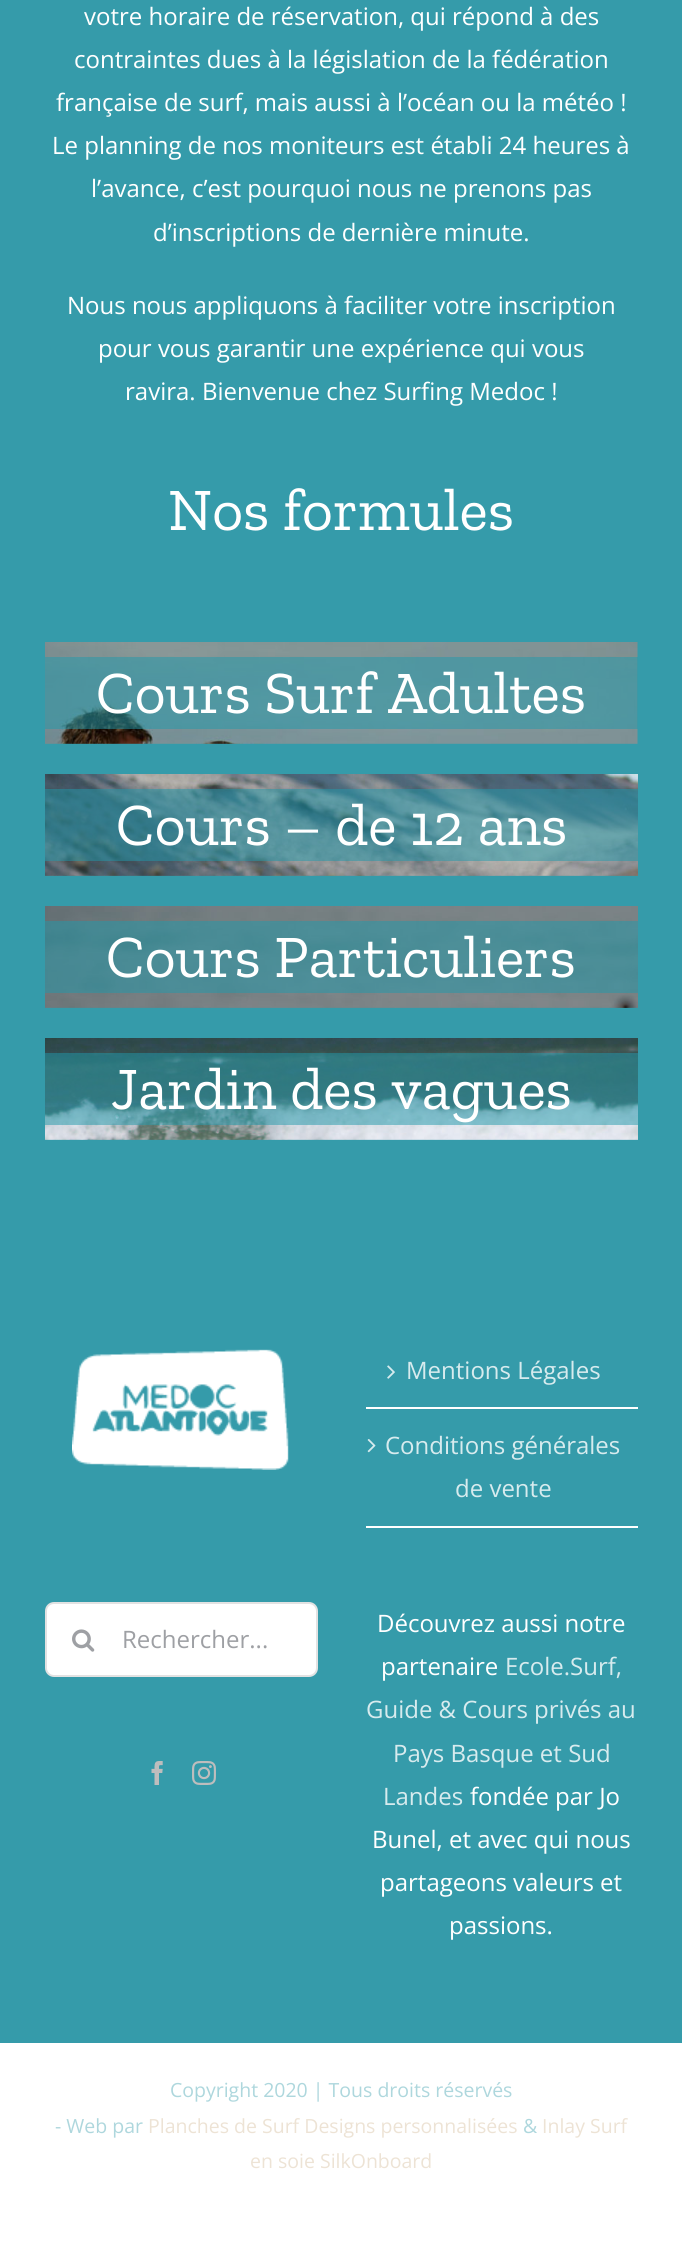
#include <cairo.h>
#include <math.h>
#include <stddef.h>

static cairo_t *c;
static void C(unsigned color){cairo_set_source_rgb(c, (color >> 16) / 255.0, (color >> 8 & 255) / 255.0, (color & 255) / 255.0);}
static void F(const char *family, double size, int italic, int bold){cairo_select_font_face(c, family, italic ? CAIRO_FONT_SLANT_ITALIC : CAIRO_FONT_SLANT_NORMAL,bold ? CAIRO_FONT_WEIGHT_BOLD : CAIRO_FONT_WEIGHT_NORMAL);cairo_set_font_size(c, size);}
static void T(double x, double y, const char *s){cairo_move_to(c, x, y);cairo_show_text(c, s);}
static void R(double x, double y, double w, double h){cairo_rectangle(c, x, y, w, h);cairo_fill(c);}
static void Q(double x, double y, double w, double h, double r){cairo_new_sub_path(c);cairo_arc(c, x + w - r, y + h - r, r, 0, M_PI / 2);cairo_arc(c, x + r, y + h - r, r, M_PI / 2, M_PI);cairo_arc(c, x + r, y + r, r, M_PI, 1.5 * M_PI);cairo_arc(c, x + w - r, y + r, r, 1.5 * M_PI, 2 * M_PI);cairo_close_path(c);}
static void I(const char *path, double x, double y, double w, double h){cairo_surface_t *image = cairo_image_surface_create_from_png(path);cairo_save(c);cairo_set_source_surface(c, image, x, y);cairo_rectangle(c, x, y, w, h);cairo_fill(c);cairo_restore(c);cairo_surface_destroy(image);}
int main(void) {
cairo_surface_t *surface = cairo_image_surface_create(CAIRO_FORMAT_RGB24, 682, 2251);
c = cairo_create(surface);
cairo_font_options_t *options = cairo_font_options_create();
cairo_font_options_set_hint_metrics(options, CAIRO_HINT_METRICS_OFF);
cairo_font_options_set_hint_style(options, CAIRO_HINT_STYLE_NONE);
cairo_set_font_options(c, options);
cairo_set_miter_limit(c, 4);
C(0x359baa);
cairo_paint(c);
F("Open Sans",24,0,0);
C(0xffffff);
T(84,25,"votre horaire de réservation, qui répond à des");
T(74,68,"contraintes dues à la législation de la fédération");
T(56,111,"française de surf, mais aussi à l’océan ou la météo !");
T(52,154,"Le planning de nos moniteurs est établi 24 heures à");
T(91,197,"l’avance, c’est pourquoi nous ne prenons pas");
T(153,241,"d’inscriptions de dernière minute.");
T(67,314,"Nous nous appliquons à faciliter votre inscription");
T(98,357,"pour vous garantir une expérience qui vous");
T(125,400,"ravira. Bienvenue chez Surfing Medoc !");
F("Zilla Slab",60,0,0);
T(168,530,"Nos formules");
I("1.png",45,642,593,102);
cairo_set_source_rgba(c,0.125,0.604,0.675,0.5);
R(45,657,593,72);
C(0xffffff);
T(96,713,"Cours Surf Adultes");
I("2.png",45,774,593,102);
cairo_set_source_rgba(c,0.125,0.604,0.675,0.5);
R(45,789,593,72);
C(0xffffff);
T(116,845,"Cours – de 12 ans");
I("3.png",45,906,593,102);
cairo_set_source_rgba(c,0.125,0.604,0.675,0.5);
R(45,921,593,72);
C(0xffffff);
T(106,977,"Cours Particuliers");
I("4.png",45,1038,593,102);
cairo_set_source_rgba(c,0.125,0.604,0.675,0.5);
R(45,1053,593,72);
C(0xffffff);
T(111,1109,"Jardin des vagues");
I("5.png",72,1349,217,121);
R(366,1407,272,2);
I("6.png",387,1365,8,14);
F("Open Sans",24,0,0);
C(0xd7ebee);
T(406,1379,"Mentions Légales");
C(0xffffff);
R(366,1526,272,2);
I("7.png",367,1439,9,14);
C(0xd7ebee);
T(385,1454,"Conditions générales");
T(455,1497,"de vente");
C(0xffffff);
Q(46,1603,271,73,8);
cairo_fill_preserve(c);
C(0xe2e2e2);
cairo_stroke(c);
I("8.png",72,1629,23,23);
C(0x9ea0a4);
T(122,1648,"Rechercher...");
I("9.png",151,1761,12,24);
I("10.png",192,1761,24,24);
C(0xffffff);
T(377,1632,"Découvrez aussi notre");
T(381,1675,"partenaire");
C(0xd7ebee);
T(505,1675,"Ecole.Surf,");
T(366,1718,"Guide & Cours privés au");
T(393,1762,"Pays Basque et Sud");
T(383,1805,"Landes");
C(0xffffff);
T(470,1805,"fondée par Jo");
T(372,1848,"Bunel, et avec qui nous");
T(380,1891,"partageons valeurs et");
T(449,1934,"passions.");
R(0,2043,682,208);
F("Open Sans",19.5,0,0);
C(0xaed7dd);
T(170,2097,"Copyright 2020 | Tous droits réservés");
T(55,2133,"- Web par");
C(0xede3d5);
T(148,2133,"Planches de Surf Designs personnalisées");
C(0xaed7dd);
T(523,2133,"&");
C(0xede3d5);
T(542,2133,"Inlay Surf");
T(250,2168,"en soie SilkOnboard");
cairo_surface_write_to_png(surface, "o.png");
cairo_font_options_destroy(options);
cairo_destroy(c);
cairo_surface_destroy(surface);
return 0;
}
